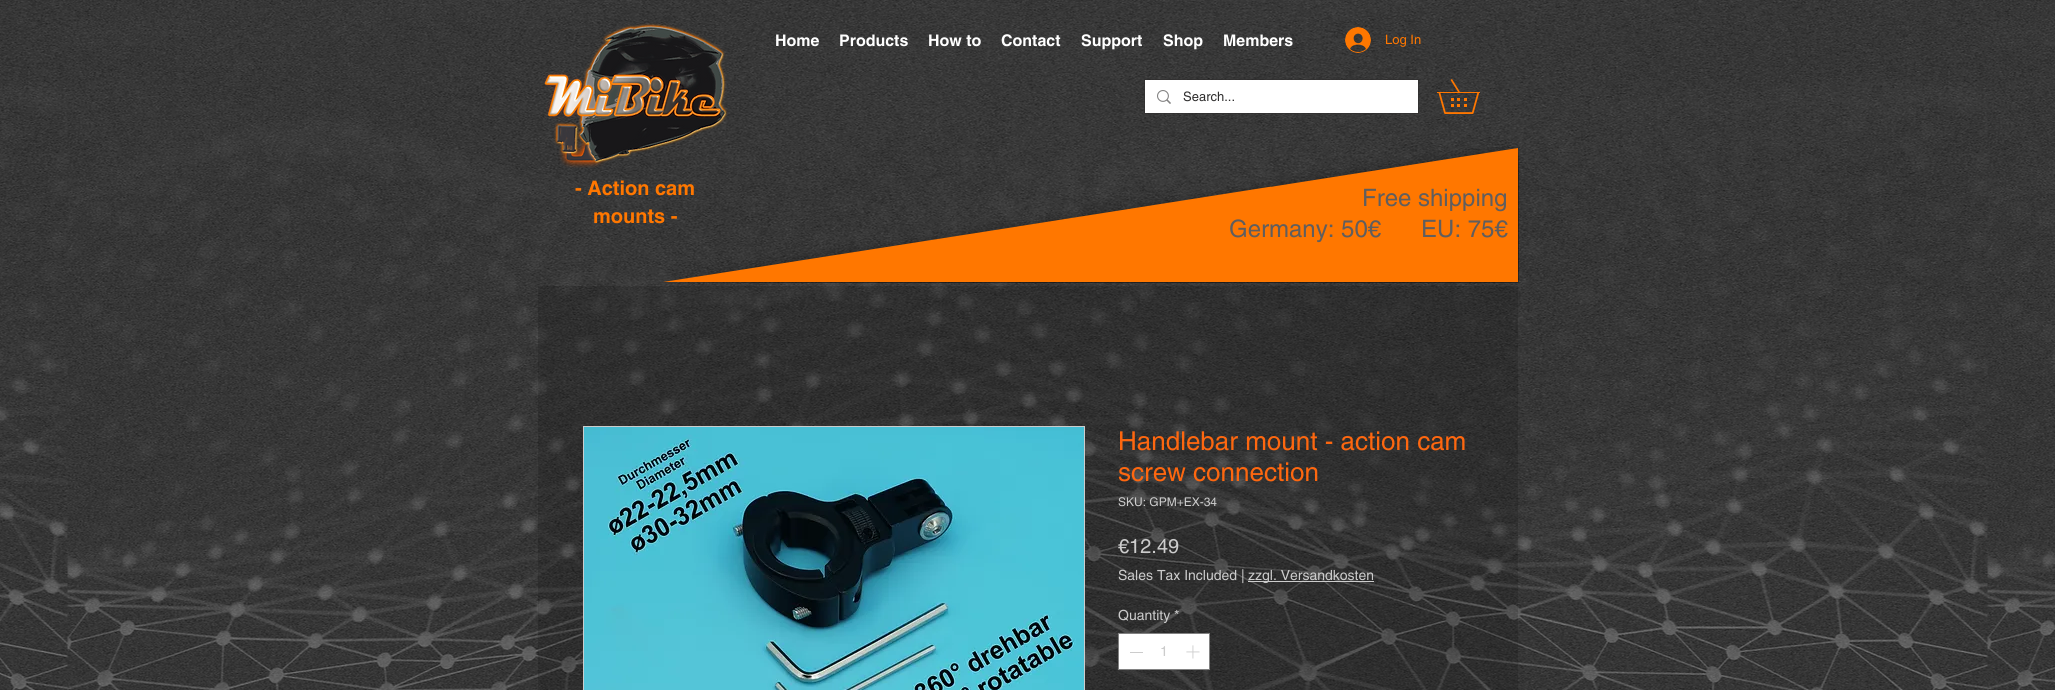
#include <cairo.h>
#include <math.h>
#include <stddef.h>

static cairo_t *c;
static void C(unsigned color){cairo_set_source_rgb(c, (color >> 16) / 255.0, (color >> 8 & 255) / 255.0, (color & 255) / 255.0);}
static void F(const char *family, double size, int italic, int bold){cairo_select_font_face(c, family, italic ? CAIRO_FONT_SLANT_ITALIC : CAIRO_FONT_SLANT_NORMAL,bold ? CAIRO_FONT_WEIGHT_BOLD : CAIRO_FONT_WEIGHT_NORMAL);cairo_set_font_size(c, size);}
static void T(double x, double y, const char *s){cairo_move_to(c, x, y);cairo_show_text(c, s);}
static void R(double x, double y, double w, double h){cairo_rectangle(c, x, y, w, h);cairo_fill(c);}
static void I(const char *path, double x, double y, double w, double h){cairo_surface_t *image = cairo_image_surface_create_from_png(path);cairo_save(c);cairo_set_source_surface(c, image, x, y);cairo_rectangle(c, x, y, w, h);cairo_fill(c);cairo_restore(c);cairo_surface_destroy(image);}
int main(void) {
cairo_surface_t *surface = cairo_image_surface_create(CAIRO_FORMAT_RGB24, 2055, 690);
c = cairo_create(surface);
cairo_font_options_t *options = cairo_font_options_create();
cairo_font_options_set_hint_metrics(options, CAIRO_HINT_METRICS_OFF);
cairo_font_options_set_hint_style(options, CAIRO_HINT_STYLE_NONE);
cairo_set_font_options(c, options);
cairo_set_miter_limit(c, 4);
C(0xffffff);
cairo_paint(c);
I("1.png",0,0,2055,690);
I("6.png",663,147,856,136);
I("2.png",544,23,184,145);
F("helvetica",16,0,1);
C(0xffffff);
T(775,46,"Home");
T(839,46,"Products");
T(928,46,"How to");
T(1001,46,"Contact");
T(1081,46,"Support");
T(1163,46,"Shop");
T(1223,46,"Members");
I("3.png",1345,27,26,26);
F("helvetica",13,0,0);
C(0xff7700);
T(1385,44,"Log In");
I("4.png",1437,79,43,35);
cairo_rectangle(c,1144.5,79.5,274,34);
cairo_set_source_rgba(c,0.184,0.18,0.18,0.6);
cairo_set_line_width(c,1);
cairo_stroke(c);
C(0xffffff);
R(1145,80,273,33);
I("5.png",1157,90,14,14);
C(0x2f2e2e);
T(1183,101,"Search...");
F("helvetica",20,0,1);
C(0xff7700);
T(575,195,"- Action cam");
T(593,223,"mounts -");
F("helvetica",24,0,0);
C(0x605e5e);
T(1362,206,"Free shipping");
T(1229,237,"Germany: 50€      EU: 75€");
cairo_set_source_rgba(c,0,0,0,0.15);
R(538,286,980,404);
cairo_rectangle(c,583.5,426.5,501,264);
C(0xcccccc);
cairo_stroke(c);
I("7.png",584,427,500,263);
F("helvetica",26,0,0);
C(0xfe670f);
T(1118,450,"Handlebar mount - action cam");
T(1118,481,"screw connection");
F("helvetica",12,0,0);
C(0xcccccc);
T(1118,506,"SKU: GPM+EX-34");
F("helvetica",20,0,0);
T(1118,553,"€12.49");
F("helvetica",14,0,0);
T(1118,580,"Sales Tax Included |");
R(1248,581,126,1);
T(1248,580,"zzgl. Versandkosten");
T(1118,620,"Quantity *");
C(0xffffff);
cairo_rectangle(c,1118.5,633.5,91,36);
cairo_fill_preserve(c);
C(0x828282);
cairo_stroke(c);
C(0xcccccc);
R(1130,652,13,1);
T(1160,656,"1");
I("8.png",1186,645,14,14);
cairo_surface_write_to_png(surface, "o.png");
cairo_font_options_destroy(options);
cairo_destroy(c);
cairo_surface_destroy(surface);
return 0;
}
